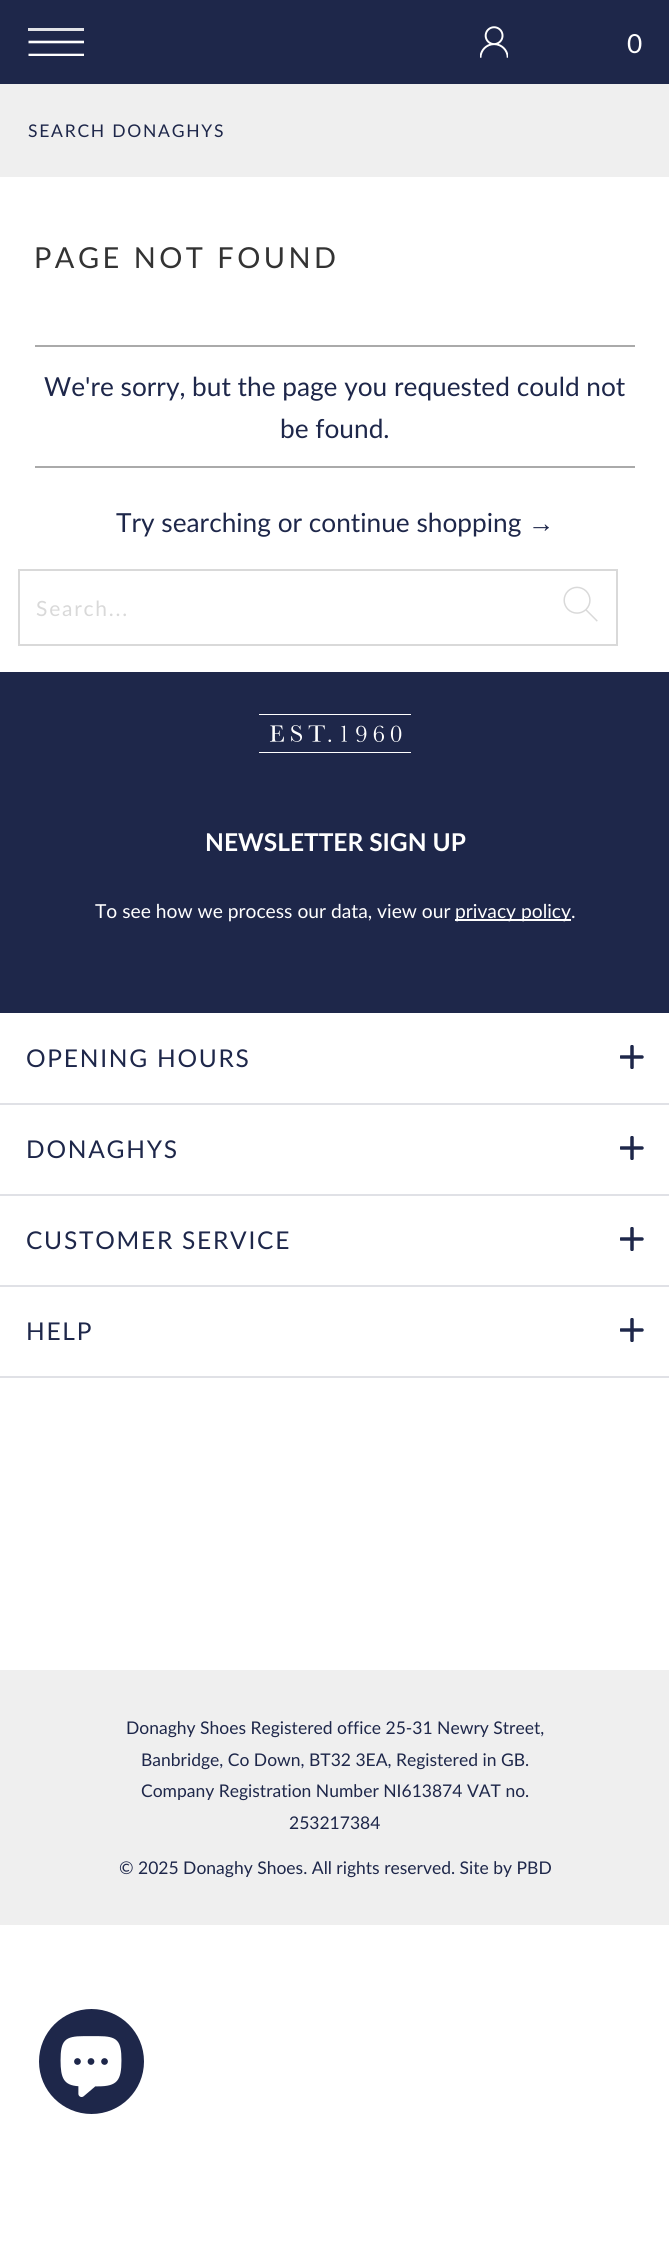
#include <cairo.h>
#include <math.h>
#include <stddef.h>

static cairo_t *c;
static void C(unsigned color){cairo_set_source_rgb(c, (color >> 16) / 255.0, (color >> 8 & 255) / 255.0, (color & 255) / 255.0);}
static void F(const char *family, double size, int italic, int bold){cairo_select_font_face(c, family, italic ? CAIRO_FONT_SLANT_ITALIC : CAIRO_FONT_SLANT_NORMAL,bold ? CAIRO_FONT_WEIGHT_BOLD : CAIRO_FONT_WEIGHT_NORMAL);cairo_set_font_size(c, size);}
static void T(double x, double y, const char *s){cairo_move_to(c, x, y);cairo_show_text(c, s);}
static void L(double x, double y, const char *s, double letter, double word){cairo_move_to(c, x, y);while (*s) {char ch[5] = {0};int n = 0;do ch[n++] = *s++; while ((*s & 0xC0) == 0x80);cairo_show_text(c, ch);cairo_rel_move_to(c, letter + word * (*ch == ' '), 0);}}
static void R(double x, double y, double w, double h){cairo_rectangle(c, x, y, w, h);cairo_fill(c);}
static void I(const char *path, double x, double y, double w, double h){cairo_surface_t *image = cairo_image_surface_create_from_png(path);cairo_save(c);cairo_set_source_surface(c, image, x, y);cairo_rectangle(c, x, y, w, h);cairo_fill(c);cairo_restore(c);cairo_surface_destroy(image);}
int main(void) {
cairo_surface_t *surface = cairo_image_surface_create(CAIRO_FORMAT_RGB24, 669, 2262);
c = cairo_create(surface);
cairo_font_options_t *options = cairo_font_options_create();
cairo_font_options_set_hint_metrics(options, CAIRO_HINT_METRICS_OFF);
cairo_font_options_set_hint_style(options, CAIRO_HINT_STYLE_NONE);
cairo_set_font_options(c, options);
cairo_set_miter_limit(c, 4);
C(0xffffff);
cairo_paint(c);
C(0x1e274a);
R(0,0,669,84);
C(0xe1e2e7);
R(28,28,56,3);
cairo_save(c);
cairo_rectangle(c,28,28,56,28);
cairo_clip(c);
cairo_new_path(c);
cairo_move_to(c,28.5,42);
cairo_line_to(c,84.5,42);
cairo_move_to(c,28.5,55);
cairo_line_to(c,84.5,55);
C(0xffffff);
cairo_set_line_width(c,2.6);
cairo_stroke(c);
cairo_restore(c);
I("1.png",480,26,28,32);
F("Lato",26.25,0,0);
C(0xffffff);
T(627,53,"0");
C(0xefefef);
R(0,84,669,93);
F("Lato",17.5,0,0);
C(0x1e274a);
L(28,137,"SEARCH DONAGHYS",1.75,0);
F("Lato",28.9,0,0);
C(0x333333);
L(34,268,"PAGE NOT FOUND",3.5,0);
C(0xaaaaaa);
R(35,345,600,2);
R(35,466,600,2);
F("Lato",26.25,0,0);
C(0x1e274a);
T(44,396,"We're sorry, but the page you requested could not");
T(280,438,"be found.");
T(116,532,"Try searching or continue shopping");
F("Liberation Sans",26.25,0,0);
T(528,532,"→");
cairo_rectangle(c,19,570,598,75);
C(0xd9d9d9);
cairo_stroke(c);
F("Lato",21,0,0);
L(36,616,"Search...",1.75,0);
I("2.png",563,586,35,36);
C(0x1e274a);
R(0,672,669,341);
I("3.png",259,714,152,39);
F("Lato",24.5,0,1);
C(0xffffff);
T(205,851,"NEWSLETTER SIGN UP");
F("Lato",19.25,0,0);
T(95,918,"To see how we process our data, view our");
R(455,919,116,2);
T(455,918,"privacy policy");
T(571,918,".");
C(0xe0e1e6);
R(0,1103,669,2);
F("Lato",24.5,0,0);
C(0x1e274a);
L(26,1067,"OPENING HOURS",1.75,0);
cairo_save(c);
cairo_rectangle(c,620,1045,24,24);
cairo_clip(c);
cairo_new_path(c);
cairo_move_to(c,621,1057);
cairo_line_to(c,642,1057);
cairo_move_to(c,632,1046.5);
cairo_line_to(c,632,1067.5);
cairo_set_line_width(c,3.5);
cairo_set_line_cap(c,CAIRO_LINE_CAP_ROUND);
cairo_stroke(c);
cairo_restore(c);
C(0xe0e1e6);
R(0,1194,669,2);
C(0x1e274a);
L(26,1158,"DONAGHYS",1.75,0);
cairo_save(c);
cairo_rectangle(c,620,1136,24,24);
cairo_clip(c);
cairo_new_path(c);
cairo_move_to(c,621,1148);
cairo_line_to(c,642,1148);
cairo_move_to(c,632,1137.5);
cairo_line_to(c,632,1158.5);
cairo_set_line_width(c,3.5);
cairo_set_line_cap(c,CAIRO_LINE_CAP_ROUND);
cairo_stroke(c);
cairo_restore(c);
C(0xe0e1e6);
R(0,1285,669,2);
C(0x1e274a);
L(26,1249,"CUSTOMER SERVICE",1.75,0);
cairo_save(c);
cairo_rectangle(c,620,1227,24,24);
cairo_clip(c);
cairo_new_path(c);
cairo_move_to(c,621,1239);
cairo_line_to(c,642,1239);
cairo_move_to(c,632,1228.5);
cairo_line_to(c,632,1249.5);
cairo_set_line_width(c,3.5);
cairo_set_line_cap(c,CAIRO_LINE_CAP_ROUND);
cairo_stroke(c);
cairo_restore(c);
C(0xe0e1e6);
R(0,1376,669,2);
C(0x1e274a);
L(26,1340,"HELP",1.75,0);
cairo_save(c);
cairo_rectangle(c,620,1318,24,24);
cairo_clip(c);
cairo_new_path(c);
cairo_move_to(c,621,1330);
cairo_line_to(c,642,1330);
cairo_move_to(c,632,1319.5);
cairo_line_to(c,632,1340.5);
cairo_set_line_width(c,3.5);
cairo_set_line_cap(c,CAIRO_LINE_CAP_ROUND);
cairo_stroke(c);
cairo_restore(c);
C(0xefefef);
R(0,1670,669,255);
F("Lato",17.5,0,0);
C(0x1e274a);
T(126,1734,"Donaghy Shoes Registered office 25-31 Newry Street,");
T(141,1766,"Banbridge, Co Down, BT32 3EA, Registered in GB.");
T(141,1797,"Company Registration Number NI613874 VAT no.");
T(289,1829,"253217384");
T(119,1874,"© 2025 Donaghy Shoes. All rights reserved. Site by PBD");
cairo_new_path(c);
cairo_arc(c,91.5,2061.5,52.5,0,2 * M_PI);
cairo_fill(c);
I("4.png",60,2036,62,61);
cairo_surface_write_to_png(surface, "o.png");
cairo_font_options_destroy(options);
cairo_destroy(c);
cairo_surface_destroy(surface);
return 0;
}
